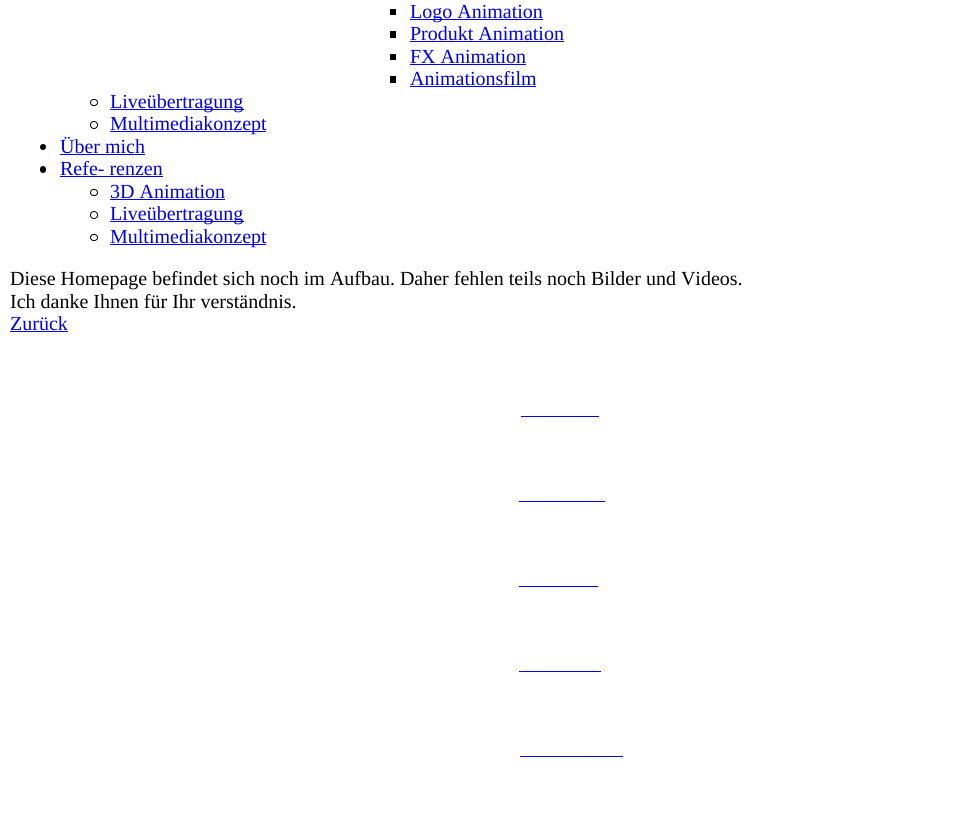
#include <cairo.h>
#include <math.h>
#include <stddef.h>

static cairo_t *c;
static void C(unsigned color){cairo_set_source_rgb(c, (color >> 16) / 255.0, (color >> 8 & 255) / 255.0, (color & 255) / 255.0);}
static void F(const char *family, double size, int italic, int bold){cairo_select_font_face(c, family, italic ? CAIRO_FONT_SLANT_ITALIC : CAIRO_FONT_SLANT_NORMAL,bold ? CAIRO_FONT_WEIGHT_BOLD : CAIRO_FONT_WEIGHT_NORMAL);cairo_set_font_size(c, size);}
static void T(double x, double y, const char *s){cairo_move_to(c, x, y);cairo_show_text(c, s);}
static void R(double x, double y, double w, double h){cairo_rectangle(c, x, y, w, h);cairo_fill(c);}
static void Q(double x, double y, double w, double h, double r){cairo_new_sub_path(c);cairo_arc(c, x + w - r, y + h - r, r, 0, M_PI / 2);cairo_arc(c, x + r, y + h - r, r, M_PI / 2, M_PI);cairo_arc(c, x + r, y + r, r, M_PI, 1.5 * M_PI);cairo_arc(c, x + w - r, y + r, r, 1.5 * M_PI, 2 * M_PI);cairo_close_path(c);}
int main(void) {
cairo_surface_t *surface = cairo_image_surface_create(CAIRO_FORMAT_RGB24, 973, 819);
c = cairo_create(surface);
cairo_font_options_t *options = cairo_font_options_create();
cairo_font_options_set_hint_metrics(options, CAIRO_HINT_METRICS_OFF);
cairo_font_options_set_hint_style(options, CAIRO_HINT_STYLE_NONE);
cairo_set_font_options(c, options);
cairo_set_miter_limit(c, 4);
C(0xffffff);
cairo_paint(c);
C(0x000000);
R(390,9,6,6);
C(0x0000ee);
R(410,19,133,1);
F("Liberation Serif",20,0,0);
T(410,18,"Logo Animation");
C(0x000000);
R(390,31,6,7);
C(0x0000ee);
T(410,40,"Produkt Animation");
R(410,41,154,1);
C(0x000000);
R(390,54,6,6);
C(0x0000ee);
T(410,63,"FX Animation");
R(410,64,116,1);
C(0x000000);
R(390,76,6,7);
C(0x0000ee);
T(410,85,"Animationsfilm");
R(410,86,126,1);
Q(90.5,99.5,7,6,3);
C(0x000000);
cairo_set_line_width(c,1);
cairo_stroke(c);
C(0x0000ee);
R(110,109,134,1);
T(110,108,"Liveübertragung");
cairo_new_path(c);
cairo_arc(c,94,125,3.5,0,2 * M_PI);
C(0x000000);
cairo_stroke(c);
C(0x0000ee);
R(110,131,156,1);
T(110,130,"Multimediakonzept");
C(0x000000);
cairo_new_path(c);
cairo_arc(c,43,147,3,0,2 * M_PI);
cairo_fill(c);
C(0x0000ee);
T(60,153,"Über mich");
R(60,154,85,1);
C(0x000000);
Q(40,166,6,7,3);
cairo_fill(c);
C(0x0000ee);
T(60,175,"Refe- renzen");
R(60,176,103,1);
Q(90.5,189.5,7,6,3);
C(0x000000);
cairo_stroke(c);
C(0x0000ee);
T(110,198,"3D Animation");
R(110,199,115,1);
cairo_new_path(c);
cairo_arc(c,94,215,3.5,0,2 * M_PI);
C(0x000000);
cairo_stroke(c);
C(0x0000ee);
R(110,221,134,1);
T(110,220,"Liveübertragung");
Q(90.5,234.5,7,6,3);
C(0x000000);
cairo_stroke(c);
C(0x0000ee);
R(110,244,156,1);
T(110,243,"Multimediakonzept");
C(0x000000);
T(10,285,"Diese Homepage befindet sich noch im Aufbau. Daher fehlen teils noch Bilder und Videos.");
T(10,308,"Ich danke Ihnen für Ihr verständnis.");
C(0x0000ee);
T(10,330,"Zurück");
R(10,331,58,1);
R(521,416,78,1);
R(519,501,86,1);
R(519,586,79,1);
R(519,671,82,1);
R(520,756,103,1);
cairo_surface_write_to_png(surface, "o.png");
cairo_font_options_destroy(options);
cairo_destroy(c);
cairo_surface_destroy(surface);
return 0;
}
